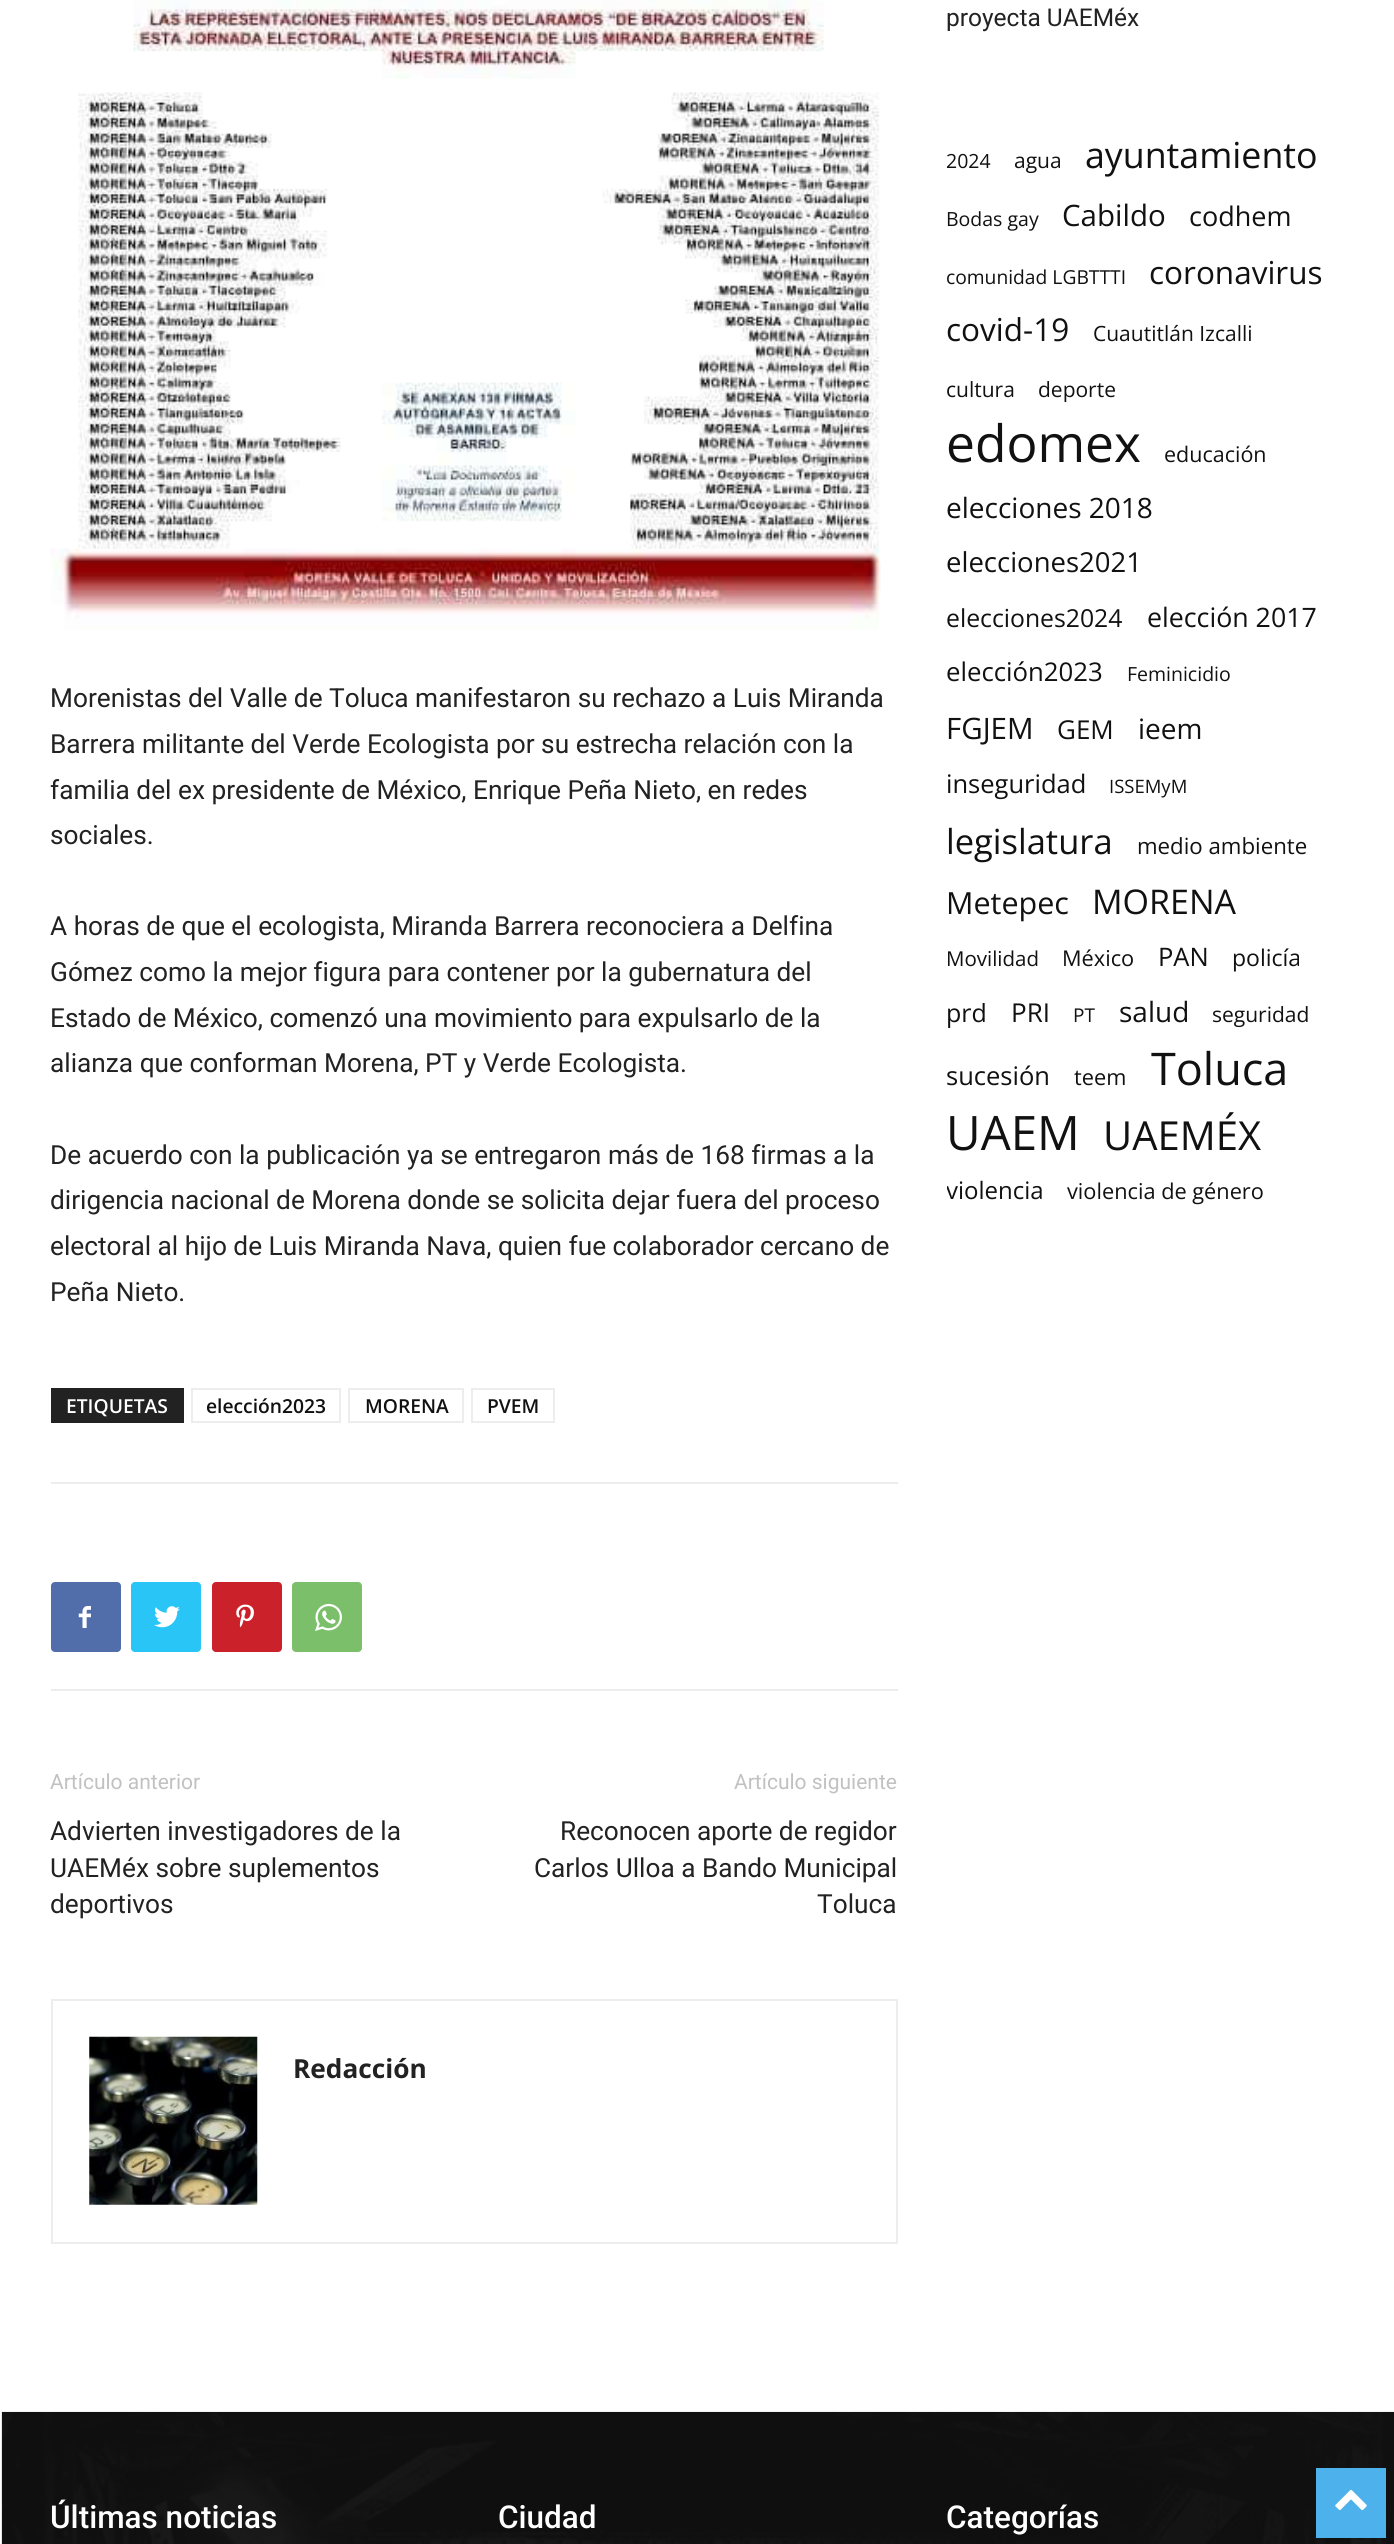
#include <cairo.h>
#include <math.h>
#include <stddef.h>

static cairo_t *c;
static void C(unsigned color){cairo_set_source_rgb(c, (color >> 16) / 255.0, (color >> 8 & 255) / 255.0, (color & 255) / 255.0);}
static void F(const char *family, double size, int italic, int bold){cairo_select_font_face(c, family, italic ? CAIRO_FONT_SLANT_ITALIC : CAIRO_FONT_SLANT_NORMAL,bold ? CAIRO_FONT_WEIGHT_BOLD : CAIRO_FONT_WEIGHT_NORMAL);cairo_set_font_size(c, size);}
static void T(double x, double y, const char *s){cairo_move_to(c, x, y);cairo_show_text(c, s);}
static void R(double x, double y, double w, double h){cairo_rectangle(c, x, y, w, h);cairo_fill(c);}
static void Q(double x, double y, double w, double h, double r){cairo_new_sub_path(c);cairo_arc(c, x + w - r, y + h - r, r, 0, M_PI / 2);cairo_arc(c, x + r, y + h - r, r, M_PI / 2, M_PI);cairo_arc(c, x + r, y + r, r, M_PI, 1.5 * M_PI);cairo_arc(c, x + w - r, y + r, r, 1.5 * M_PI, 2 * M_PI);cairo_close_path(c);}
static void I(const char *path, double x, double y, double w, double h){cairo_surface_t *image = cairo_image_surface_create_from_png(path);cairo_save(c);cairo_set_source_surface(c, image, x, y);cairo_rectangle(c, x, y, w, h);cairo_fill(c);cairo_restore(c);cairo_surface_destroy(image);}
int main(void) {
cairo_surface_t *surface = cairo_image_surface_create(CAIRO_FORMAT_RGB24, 1394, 2544);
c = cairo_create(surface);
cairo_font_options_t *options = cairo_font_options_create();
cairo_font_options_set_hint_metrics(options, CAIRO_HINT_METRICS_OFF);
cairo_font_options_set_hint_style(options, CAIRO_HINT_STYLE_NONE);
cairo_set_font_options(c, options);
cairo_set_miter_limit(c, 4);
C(0xffffff);
cairo_paint(c);
I("1.png",51,0,830,630);
F("Roboto",26.25,0,0);
C(0x222222);
T(50,707,"Morenistas del Valle de Toluca manifestaron su rechazo a Luis Miranda");
T(50,753,"Barrera militante del Verde Ecologista por su estrecha relación con la");
T(50,799,"familia del ex presidente de México, Enrique Peña Nieto, en redes");
T(50,844,"sociales.");
T(50,935,"A horas de que el ecologista, Miranda Barrera reconociera a Delfina");
T(50,981,"Gómez como la mejor figura para contener por la gubernatura del");
T(50,1027,"Estado de México, comenzó una movimiento para expulsarlo de la");
T(50,1072,"alianza que conforman Morena, PT y Verde Ecologista.");
T(50,1164,"De acuerdo con la publicación ya se entregaron más de 168 firmas a la");
T(50,1209,"dirigencia nacional de Morena donde se solicita dejar fuera del proceso");
T(50,1255,"electoral al hijo de Luis Miranda Nava, quien fue colaborador cercano de");
T(50,1301,"Peña Nieto.");
R(51,1388,133,35);
F("Open Sans SemiBold",19.25,0,0);
C(0xffffff);
T(66,1413,"ETIQUETAS");
cairo_rectangle(c,192,1389,148,33);
C(0xededed);
cairo_stroke(c);
C(0x111111);
T(206,1413,"elección2023");
cairo_rectangle(c,349,1389,114,33);
C(0xededed);
cairo_stroke(c);
C(0x111111);
T(365,1413,"MORENA");
cairo_rectangle(c,472,1389,82,33);
C(0xededed);
cairo_stroke(c);
C(0x111111);
T(487,1413,"PVEM");
C(0xededed);
R(51,1482,847,2);
R(51,1689,847,2);
C(0x516eab);
Q(51,1582,70,70,4);
cairo_fill(c);
I("2.png",78,1606,13,22);
C(0x29c5f6);
Q(131,1582,70,70,4);
cairo_fill(c);
I("3.png",154,1606,26,22);
C(0xca212a);
Q(212,1582,70,70,4);
cairo_fill(c);
I("4.png",236,1604,18,24);
C(0x7bbf6a);
Q(292,1582,70,70,4);
cairo_fill(c);
I("5.png",315,1603,27,28);
F("Roboto",21,0,0);
C(0xc1c1c1);
T(50,1789,"Artículo anterior");
F("Roboto",26.25,0,0);
C(0x222222);
T(50,1840,"Advierten investigadores de la");
T(50,1877,"UAEMéx sobre suplementos");
T(50,1913,"deportivos");
F("Roboto",21,0,0);
C(0xc1c1c1);
T(734,1789,"Artículo siguiente");
F("Roboto",26.25,0,0);
C(0x222222);
T(560,1840,"Reconocen aporte de regidor");
T(534,1877,"Carlos Ulloa a Bando Municipal");
T(817,1913,"Toluca");
cairo_rectangle(c,52,2000,845,243);
C(0xededed);
cairo_stroke(c);
I("6.png",89,2036,169,169);
F("Open Sans",26.25,0,1);
C(0x222222);
T(293,2078,"Redacción");
F("Roboto",24.5,0,0);
T(946,26,"proyecta UAEMéx");
F("Open Sans",19.5,0,0);
C(0x111111);
T(946,168,"2024");
F("Open Sans",21,0,0);
T(1014,168,"agua");
F("Open Sans",35.75,0,0);
T(1085,168,"ayuntamiento");
F("Open Sans",19.5,0,0);
T(946,226,"Bodas gay");
F("Open Sans",29.5,0,0);
T(1062,226,"Cabildo");
F("Open Sans",27,0,0);
T(1189,226,"codhem");
F("Open Sans",19.25,0,0);
T(946,284,"comunidad LGBTTTI");
F("Open Sans",31.5,0,0);
T(1149,284,"coronavirus");
T(946,341,"covid-19");
F("Open Sans",21,0,0);
T(1093,341,"Cuautitlán Izcalli");
T(946,397,"cultura");
T(1038,397,"deporte");
F("Open Sans",51.5,0,0);
T(946,462,"edomex");
F("Open Sans",21.5,0,0);
T(1164,462,"educación");
F("Open Sans",28,0,0);
T(946,518,"elecciones 2018");
F("Open Sans",27.5,0,0);
T(946,572,"elecciones2021");
F("Open Sans",24.75,0,0);
T(946,627,"elecciones2024");
F("Open Sans",26.75,0,0);
T(1147,627,"elección 2017");
F("Open Sans",25.75,0,0);
T(946,681,"elección2023");
F("Open Sans",19.5,0,0);
T(1127,681,"Feminicidio");
F("Open Sans",29.5,0,0);
T(946,739,"FGJEM");
F("Open Sans",26,0,0);
T(1057,739,"GEM");
F("Open Sans",28,0,0);
T(1138,739,"ieem");
F("Open Sans",25.5,0,0);
T(946,793,"inseguridad");
F("Open Sans",18.5,0,0);
T(1109,793,"ISSEMyM");
F("Open Sans",34.5,0,0);
T(946,854,"legislatura");
F("Open Sans",22.25,0,0);
T(1137,854,"medio ambiente");
F("Open Sans",30.5,0,0);
T(946,914,"Metepec");
F("Open Sans",34,0,0);
T(1092,914,"MORENA");
F("Open Sans",20.5,0,0);
T(946,966,"Movilidad");
F("Open Sans",21.75,0,0);
T(1062,966,"México");
F("Open Sans",25.5,0,0);
T(1158,966,"PAN");
F("Open Sans",23,0,0);
T(1232,966,"policía");
F("Open Sans",25,0,0);
T(946,1022,"prd");
F("Open Sans",26,0,0);
T(1011,1022,"PRI");
F("Open Sans",19,0,0);
T(1073,1022,"PT");
F("Open Sans",28,0,0);
T(1119,1022,"salud");
F("Open Sans",21,0,0);
T(1212,1022,"seguridad");
F("Open Sans",25.5,0,0);
T(946,1085,"sucesión");
F("Open Sans",21.75,0,0);
T(1074,1085,"teem");
F("Open Sans",45,0,0);
T(1151,1085,"Toluca");
F("Open Sans",47.5,0,0);
T(946,1150,"UAEM");
F("Open Sans",40,0,0);
T(1103,1150,"UAEMÉX");
cairo_save(c);
cairo_rectangle(c,947,137,399,1127);
cairo_clip(c);
F("Open Sans",24,0,0);
T(946,1199,"violencia");
cairo_restore(c);
F("Open Sans",21.75,0,0);
T(1067,1199,"violencia de género");
R(2,2412,1392,132);
I("7.png",1,2411,1393,133);
F("Roboto Medium",31.5,0,0);
C(0xffffff);
T(50,2528,"Últimas noticias");
T(498,2528,"Ciudad");
T(946,2528,"Categorías");
C(0x4db2ec);
R(1316,2468,70,70);
I("8.png",1335,2489,32,21);
cairo_surface_write_to_png(surface, "o.png");
cairo_font_options_destroy(options);
cairo_destroy(c);
cairo_surface_destroy(surface);
return 0;
}
